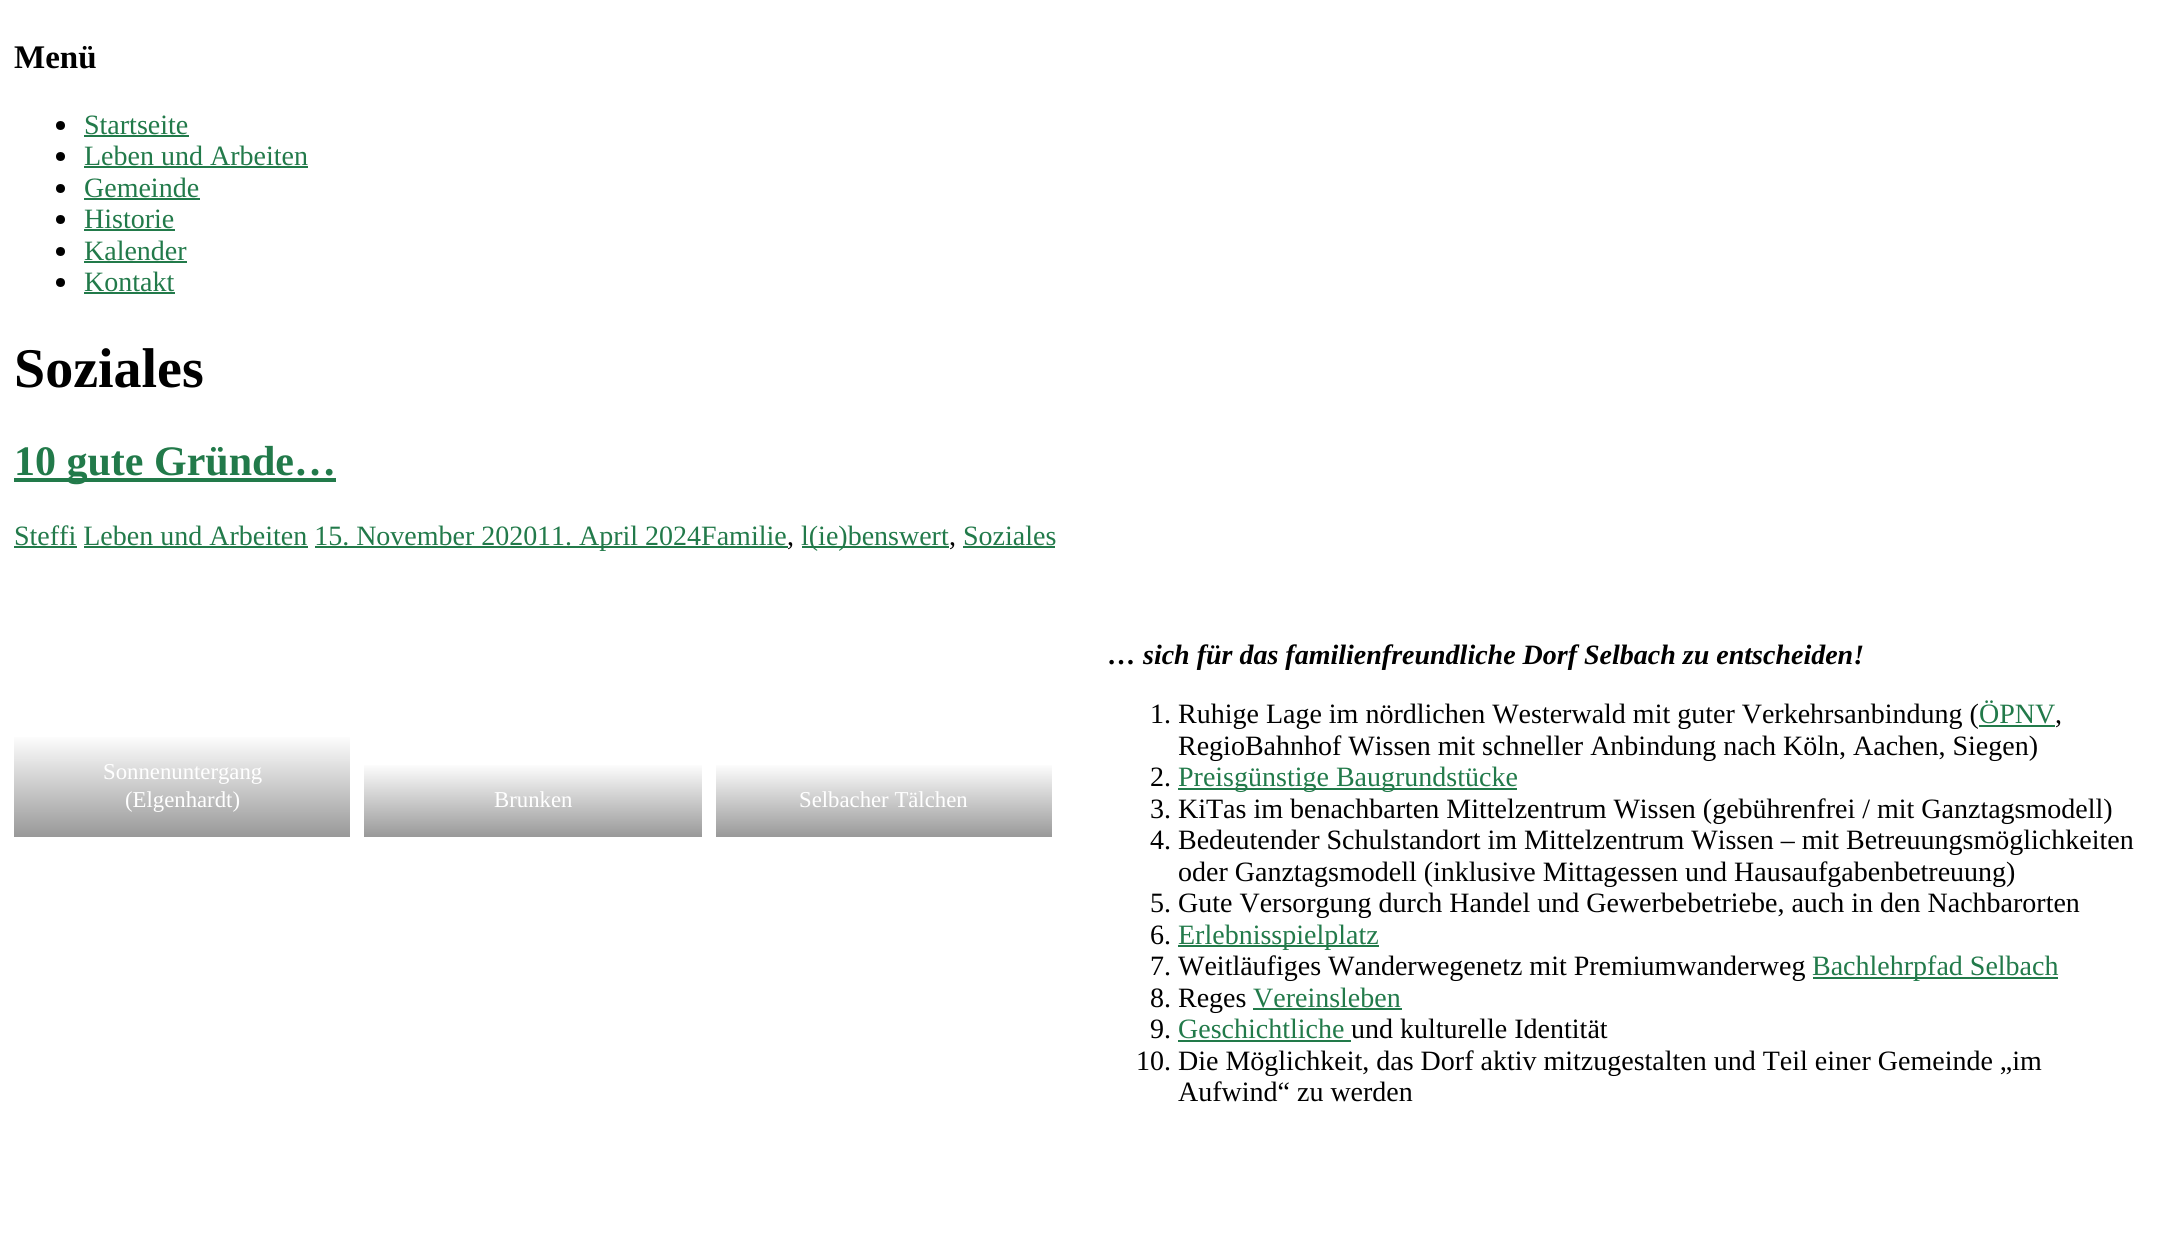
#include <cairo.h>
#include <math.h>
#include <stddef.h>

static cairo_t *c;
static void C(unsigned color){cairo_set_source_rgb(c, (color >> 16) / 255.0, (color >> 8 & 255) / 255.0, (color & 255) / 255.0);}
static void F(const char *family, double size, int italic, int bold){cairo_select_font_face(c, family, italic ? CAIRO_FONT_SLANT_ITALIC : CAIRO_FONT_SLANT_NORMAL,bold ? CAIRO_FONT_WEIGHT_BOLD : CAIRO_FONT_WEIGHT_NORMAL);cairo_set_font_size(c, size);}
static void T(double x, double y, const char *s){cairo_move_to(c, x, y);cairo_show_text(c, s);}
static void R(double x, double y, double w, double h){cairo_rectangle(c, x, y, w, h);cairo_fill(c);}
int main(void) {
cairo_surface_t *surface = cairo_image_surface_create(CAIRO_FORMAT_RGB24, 2159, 1241);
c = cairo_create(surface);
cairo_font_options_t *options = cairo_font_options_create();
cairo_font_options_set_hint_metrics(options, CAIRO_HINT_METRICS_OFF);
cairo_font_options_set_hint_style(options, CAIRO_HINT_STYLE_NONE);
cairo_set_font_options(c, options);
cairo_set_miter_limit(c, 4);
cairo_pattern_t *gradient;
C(0xffffff);
cairo_paint(c);
F("Liberation Serif",33,0,1);
C(0x000000);
T(14,68,"Menü");
cairo_new_path(c);
cairo_arc(c,60.5,125.5,4.5,0,2 * M_PI);
cairo_fill(c);
F("Liberation Serif",28,0,0);
C(0x227a4a);
T(84,134,"Startseite");
R(84,135,105,2);
C(0x000000);
cairo_new_path(c);
cairo_arc(c,60.5,156.5,4.5,0,2 * M_PI);
cairo_fill(c);
C(0x227a4a);
T(84,165,"Leben und Arbeiten");
R(84,166,224,2);
C(0x000000);
cairo_new_path(c);
cairo_arc(c,60.5,188.5,4.5,0,2 * M_PI);
cairo_fill(c);
C(0x227a4a);
T(84,197,"Gemeinde");
R(84,198,116,2);
C(0x000000);
cairo_new_path(c);
cairo_arc(c,60.5,219.5,4.5,0,2 * M_PI);
cairo_fill(c);
C(0x227a4a);
T(84,228,"Historie");
R(84,229,91,2);
C(0x000000);
cairo_new_path(c);
cairo_arc(c,60.5,251.5,4.5,0,2 * M_PI);
cairo_fill(c);
C(0x227a4a);
T(84,260,"Kalender");
R(84,261,103,2);
C(0x000000);
cairo_new_path(c);
cairo_arc(c,60.5,282.5,4.5,0,2 * M_PI);
cairo_fill(c);
C(0x227a4a);
T(84,291,"Kontakt");
R(84,292,91,2);
F("Liberation Serif",56,0,1);
C(0x000000);
T(14,387,"Soziales");
C(0x227a4a);
R(14,478,322,4);
F("Liberation Serif",42,0,1);
T(14,475,"10 gute Gründe…");
F("Liberation Serif",28,0,0);
T(14,545,"Steffi Leben und Arbeiten 15. November 2020");
R(14,546,63,2);
R(315,546,473,2);
T(537,545,"11. April 2024Familie");
C(0x000000);
T(787,545,",");
C(0x227a4a);
R(802,546,147,2);
T(801,545,"l(ie)benswert");
C(0x000000);
T(949,545,",");
C(0x227a4a);
R(963,546,92,2);
T(963,545,"Soziales");
R(84,546,224,2);
gradient = cairo_pattern_create_linear(182,837,182,735);
cairo_pattern_add_color_stop_rgba(gradient,0,0.6,0.6,0.6,1);
cairo_pattern_add_color_stop_rgba(gradient,1,1,1,1,1);
cairo_set_source(c,gradient);
cairo_pattern_destroy(gradient);
R(14,737,336,100);
F("Liberation Serif",22.75,0,0);
C(0xffffff);
T(103,779,"Sonnenuntergang");
T(125,807,"(Elgenhardt)");
gradient = cairo_pattern_create_linear(533,837,533,763);
cairo_pattern_add_color_stop_rgba(gradient,0,0.6,0.6,0.6,1);
cairo_pattern_add_color_stop_rgba(gradient,1,1,1,1,1);
cairo_set_source(c,gradient);
cairo_pattern_destroy(gradient);
R(364,765,338,72);
C(0xffffff);
T(494,807,"Brunken");
gradient = cairo_pattern_create_linear(884,837,884,763);
cairo_pattern_add_color_stop_rgba(gradient,0,0.6,0.6,0.6,1);
cairo_pattern_add_color_stop_rgba(gradient,1,1,1,1,1);
cairo_set_source(c,gradient);
cairo_pattern_destroy(gradient);
R(716,765,336,72);
C(0xffffff);
T(799,807,"Selbacher Tälchen");
F("Liberation Serif",28,1,1);
C(0x000000);
T(1108,664,"… sich für das familienfreundliche Dorf Selbach zu entscheiden!");
F("Liberation Serif",28,0,0);
T(1150,723,"1. Ruhige Lage im nördlichen Westerwald mit guter Verkehrsanbindung (");
C(0x227a4a);
T(1979,723,"ÖPNV");
R(1979,725,76,2);
C(0x000000);
T(2055,723,",");
T(1178,755,"RegioBahnhof Wissen mit schneller Anbindung nach Köln, Aachen, Siegen)");
T(1150,786,"2.");
C(0x227a4a);
R(1178,788,339,2);
T(1178,786,"Preisgünstige Baugrundstücke");
C(0x000000);
T(1150,818,"3. KiTas im benachbarten Mittelzentrum Wissen (gebührenfrei / mit Ganztagsmodell)");
T(1150,849,"4. Bedeutender Schulstandort im Mittelzentrum Wissen – mit Betreuungsmöglichkeiten");
T(1178,881,"oder Ganztagsmodell (inklusive Mittagessen und Hausaufgabenbetreuung)");
T(1150,912,"5. Gute Versorgung durch Handel und Gewerbebetriebe, auch in den Nachbarorten");
T(1150,944,"6.");
C(0x227a4a);
R(1178,945,201,2);
T(1178,944,"Erlebnisspielplatz");
C(0x000000);
T(1150,975,"7. Weitläufiges Wanderwegenetz mit Premiumwanderweg");
C(0x227a4a);
R(1813,977,245,2);
T(1812,975,"Bachlehrpfad Selbach");
C(0x000000);
T(1150,1007,"8. Reges");
C(0x227a4a);
T(1253,1007,"Vereinsleben");
R(1253,1008,149,2);
C(0x000000);
T(1150,1038,"9.");
C(0x227a4a);
T(1178,1038,"Geschichtliche");
R(1178,1040,173,2);
C(0x000000);
T(1351,1038,"und kulturelle Identität");
T(1136,1070,"10. Die Möglichkeit, das Dorf aktiv mitzugestalten und Teil einer Gemeinde „im");
T(1178,1101,"Aufwind“ zu werden");
cairo_surface_write_to_png(surface, "o.png");
cairo_font_options_destroy(options);
cairo_destroy(c);
cairo_surface_destroy(surface);
return 0;
}
